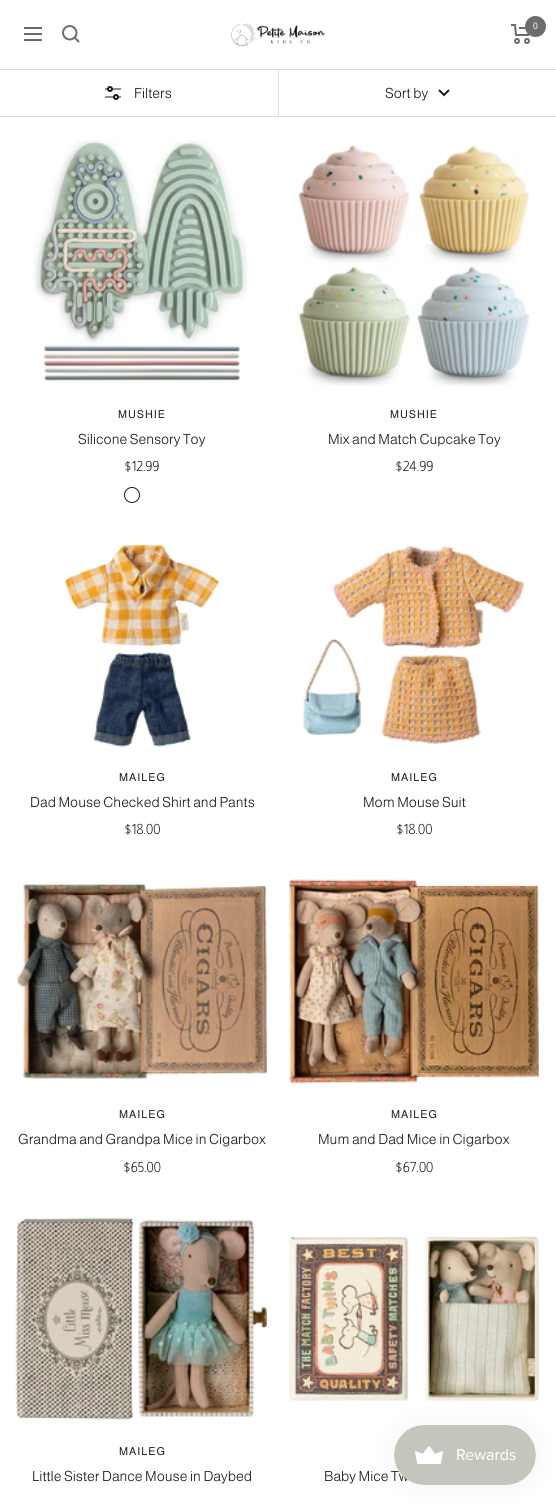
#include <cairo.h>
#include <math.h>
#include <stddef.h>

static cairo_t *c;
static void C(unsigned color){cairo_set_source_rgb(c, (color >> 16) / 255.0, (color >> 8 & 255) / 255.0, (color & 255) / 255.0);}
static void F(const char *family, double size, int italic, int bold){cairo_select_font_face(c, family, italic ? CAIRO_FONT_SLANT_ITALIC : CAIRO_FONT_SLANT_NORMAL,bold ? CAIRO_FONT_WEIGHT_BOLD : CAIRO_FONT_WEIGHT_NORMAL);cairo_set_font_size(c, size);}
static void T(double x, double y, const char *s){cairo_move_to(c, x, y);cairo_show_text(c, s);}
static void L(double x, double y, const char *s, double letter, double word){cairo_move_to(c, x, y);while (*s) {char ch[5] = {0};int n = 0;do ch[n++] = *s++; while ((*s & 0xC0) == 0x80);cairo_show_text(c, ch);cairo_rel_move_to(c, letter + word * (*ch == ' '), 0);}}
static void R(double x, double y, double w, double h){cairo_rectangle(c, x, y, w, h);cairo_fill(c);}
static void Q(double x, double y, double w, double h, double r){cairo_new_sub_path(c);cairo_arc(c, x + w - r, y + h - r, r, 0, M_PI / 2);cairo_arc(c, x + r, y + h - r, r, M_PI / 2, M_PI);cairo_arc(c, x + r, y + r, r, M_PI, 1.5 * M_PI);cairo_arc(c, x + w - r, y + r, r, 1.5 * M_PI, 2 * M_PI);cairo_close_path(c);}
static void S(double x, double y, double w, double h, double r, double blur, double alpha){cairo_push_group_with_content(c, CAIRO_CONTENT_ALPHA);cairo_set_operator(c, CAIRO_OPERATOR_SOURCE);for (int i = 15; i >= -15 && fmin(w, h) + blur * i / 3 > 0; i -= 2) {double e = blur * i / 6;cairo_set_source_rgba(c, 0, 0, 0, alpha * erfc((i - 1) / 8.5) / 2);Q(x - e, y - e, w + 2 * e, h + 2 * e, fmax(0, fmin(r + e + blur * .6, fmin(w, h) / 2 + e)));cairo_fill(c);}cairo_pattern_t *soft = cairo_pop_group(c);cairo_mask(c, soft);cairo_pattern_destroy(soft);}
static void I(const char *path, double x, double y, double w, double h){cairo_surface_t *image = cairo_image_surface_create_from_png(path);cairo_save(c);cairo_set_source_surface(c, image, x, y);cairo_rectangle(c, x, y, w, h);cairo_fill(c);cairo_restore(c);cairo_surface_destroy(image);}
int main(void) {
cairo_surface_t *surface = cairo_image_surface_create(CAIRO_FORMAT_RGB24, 556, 1505);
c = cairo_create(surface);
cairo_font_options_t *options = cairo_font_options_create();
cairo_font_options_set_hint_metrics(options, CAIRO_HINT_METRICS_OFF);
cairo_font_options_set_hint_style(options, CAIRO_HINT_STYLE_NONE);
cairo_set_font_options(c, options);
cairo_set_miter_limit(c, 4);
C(0xffffff);
cairo_paint(c);
cairo_new_path(c);
cairo_move_to(c,24,28);
cairo_line_to(c,42,28);
cairo_move_to(c,24,40);
cairo_line_to(c,42,40);
cairo_close_path(c);
cairo_move_to(c,24,34);
cairo_line_to(c,42,34);
cairo_close_path(c);
cairo_move_to(c,74.5,37.5);
cairo_curve_to(c,80.5,31,71.5,22,65,28);
cairo_curve_to(c,59,34.5,68,43.5,74.5,37.5);
cairo_close_path(c);
cairo_move_to(c,74.5,37.5);
cairo_line_to(c,79,42);
C(0x6c6c6c);
cairo_stroke(c);
I("1.png",231,23,94,24);
cairo_new_path(c);
cairo_move_to(c,511,25);
cairo_line_to(c,515,25);
cairo_line_to(c,516,35);
cairo_line_to(c,528,35);
cairo_line_to(c,530,28);
cairo_line_to(c,519,28);
cairo_stroke(c);
cairo_arc(c,517,41,2,0,2 * M_PI);
cairo_stroke(c);
cairo_arc(c,527,41,2,0,2 * M_PI);
cairo_stroke(c);
cairo_arc(c,535.5,26.5,10.5,0,2 * M_PI);
cairo_fill(c);
F("Almarai",9,0,0);
C(0xffffff);
T(533,29,"0");
C(0xdddddd);
R(0,69,556,1);
R(0,116,556,1);
I("2.png",105,86,16,14);
F("Almarai Light",14,0,0);
C(0x1a1a1a);
T(134,98,"Filters");
C(0xdddddd);
R(278,69,1,48);
C(0x1a1a1a);
T(385,98,"Sort by");
cairo_new_path(c);
cairo_move_to(c,439,90);
cairo_line_to(c,444,95);
cairo_line_to(c,449,90);
cairo_stroke(c);
I("3.png",33,140,215,241);
F("Almarai",11,0,0);
L(118,418,"MUSHIE",1,0);
F("Almarai Light",14,0,0);
T(78,444,"Silicone Sensory Toy");
T(124,471,"$12.99");
cairo_new_path(c);
cairo_arc(c,132,495,7.5,0,2 * M_PI);
cairo_set_line_width(c,1);
cairo_stroke(c);
I("4.png",297,143,233,244);
F("Almarai",11,0,0);
L(390,418,"MUSHIE",1,0);
F("Almarai Light",14,0,0);
T(328,444,"Mix and Match Cupcake Toy");
T(395,471,"$24.99");
I("5.png",65,544,154,203);
F("Almarai",11,0,0);
L(119,781,"MAILEG",1,0);
F("Almarai Light",14,0,0);
T(30,807,"Dad Mouse Checked Shirt and Pants");
T(124,834,"$18.00");
I("6.png",303,545,222,200);
F("Almarai",11,0,0);
L(391,781,"MAILEG",1,0);
F("Almarai Light",14,0,0);
T(363,807,"Mom Mouse Suit");
T(396,834,"$18.00");
I("7.png",17,883,251,197);
F("Almarai",11,0,0);
L(119,1118,"MAILEG",1,0);
F("Almarai Light",14,0,0);
T(18,1144,"Grandma and Grandpa Mice in Cigarbox");
T(123,1172,"$65.00");
I("8.png",289,879,250,205);
F("Almarai",11,0,0);
L(391,1118,"MAILEG",1,0);
F("Almarai Light",14,0,0);
T(318,1144,"Mum and Dad Mice in Cigarbox");
T(395,1172,"$67.00");
I("9.png",15,1217,252,203);
F("Almarai",11,0,0);
L(119,1455,"MAILEG",1,0);
F("Almarai Light",14,0,0);
T(32,1481,"Little Sister Dance Mouse in Daybed");
I("10.png",289,1236,250,165);
T(324,1481,"Baby Mice Tw");
C(0x000000);
S(394,1425,142,60,30,12.5,.05);
I("11.png",394,1425,142,60);
cairo_surface_write_to_png(surface, "o.png");
cairo_font_options_destroy(options);
cairo_destroy(c);
cairo_surface_destroy(surface);
return 0;
}
